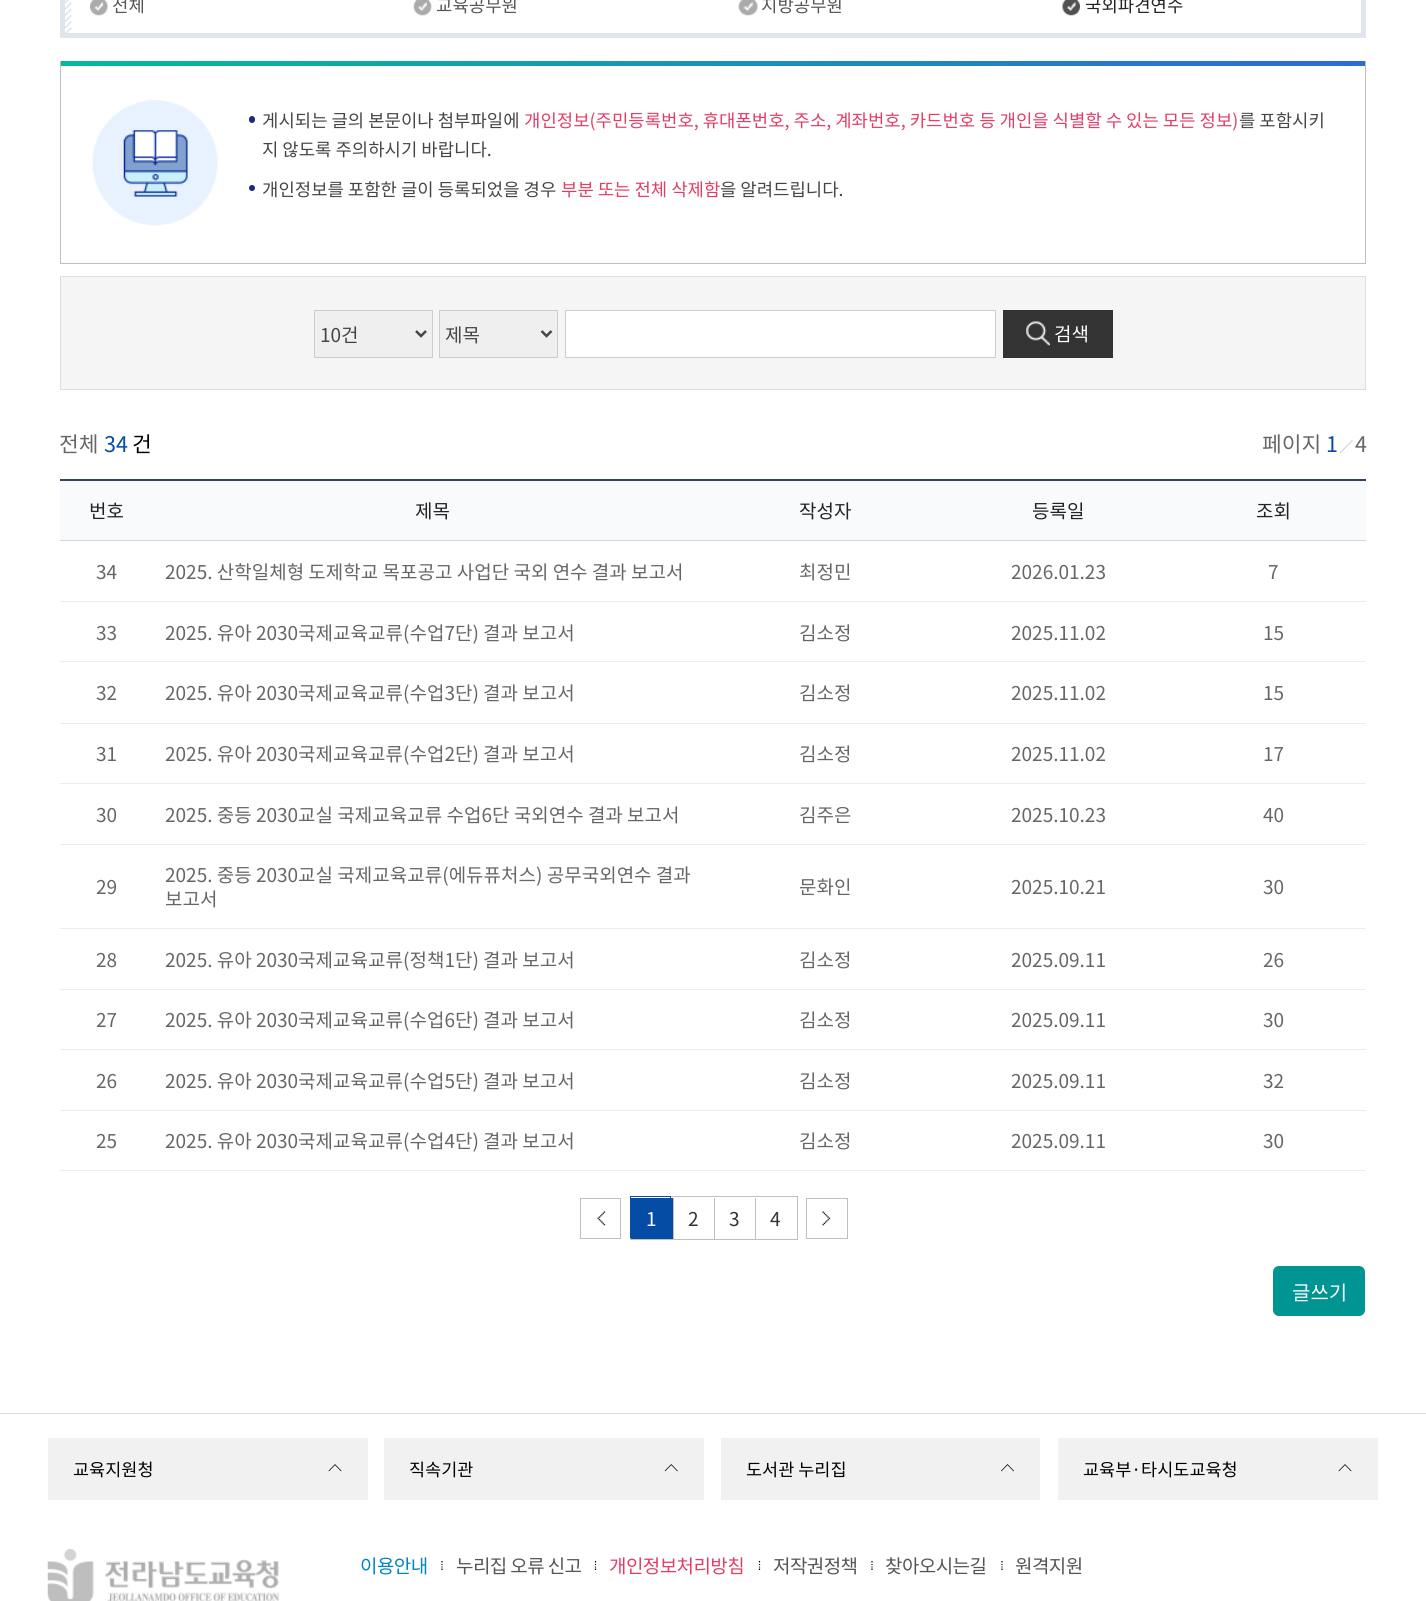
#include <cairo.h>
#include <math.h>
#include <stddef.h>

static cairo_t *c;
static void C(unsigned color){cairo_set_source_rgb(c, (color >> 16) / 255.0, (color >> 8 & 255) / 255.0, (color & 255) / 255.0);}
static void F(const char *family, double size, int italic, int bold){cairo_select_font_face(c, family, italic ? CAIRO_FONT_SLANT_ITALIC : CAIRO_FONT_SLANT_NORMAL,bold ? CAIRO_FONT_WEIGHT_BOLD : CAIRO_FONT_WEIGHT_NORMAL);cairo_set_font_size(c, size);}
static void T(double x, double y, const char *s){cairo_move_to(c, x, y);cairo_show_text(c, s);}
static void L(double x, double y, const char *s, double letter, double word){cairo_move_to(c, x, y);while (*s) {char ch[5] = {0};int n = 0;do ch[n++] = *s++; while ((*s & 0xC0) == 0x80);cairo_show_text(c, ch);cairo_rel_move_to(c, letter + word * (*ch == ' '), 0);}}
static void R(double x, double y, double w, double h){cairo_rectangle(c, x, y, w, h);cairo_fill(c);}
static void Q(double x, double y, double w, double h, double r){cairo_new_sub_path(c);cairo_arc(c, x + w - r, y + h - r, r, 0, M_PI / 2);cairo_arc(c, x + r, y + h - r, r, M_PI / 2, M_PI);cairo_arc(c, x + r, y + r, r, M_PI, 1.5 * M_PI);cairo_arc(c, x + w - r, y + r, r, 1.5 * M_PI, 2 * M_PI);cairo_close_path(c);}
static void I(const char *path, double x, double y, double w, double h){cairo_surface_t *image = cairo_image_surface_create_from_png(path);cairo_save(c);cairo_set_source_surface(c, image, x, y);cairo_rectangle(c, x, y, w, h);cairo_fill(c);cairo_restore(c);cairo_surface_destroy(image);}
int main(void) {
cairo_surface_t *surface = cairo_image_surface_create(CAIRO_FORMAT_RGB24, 1426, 1601);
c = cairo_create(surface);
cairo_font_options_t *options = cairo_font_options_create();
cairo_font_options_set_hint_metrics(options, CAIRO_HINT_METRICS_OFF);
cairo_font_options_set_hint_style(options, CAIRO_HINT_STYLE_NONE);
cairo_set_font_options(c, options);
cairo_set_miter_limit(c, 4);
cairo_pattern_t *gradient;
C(0xffffff);
cairo_paint(c);
I("1.png",65,0,7,33);
cairo_rectangle(c,62.5,-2.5,1301,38);
C(0xdfe6ee);
cairo_set_line_width(c,5);
cairo_stroke(c);
I("2.png",90,0,18,16);
F("Noto Sans KR",17.8,0,0);
C(0x555555);
T(112,12,"전체");
I("3.png",413,0,19,16);
T(436,12,"교육공무원");
I("4.png",738,0,20,16);
T(761,12,"지방공무원");
I("5.png",1062,0,18,16);
C(0x222222);
T(1085,12,"국외파견연수");
cairo_rectangle(c,60.5,61.5,1305,202);
C(0xbfbfbf);
cairo_set_line_width(c,1);
cairo_stroke(c);
gradient = cairo_pattern_create_linear(61,64,1365,64);
cairo_pattern_add_color_stop_rgba(gradient,0,0.012,0.733,0.604,1);
cairo_pattern_add_color_stop_rgba(gradient,1,0.176,0.424,0.835,1);
cairo_set_source(c,gradient);
cairo_pattern_destroy(gradient);
R(61,61,1304,5);
I("6.png",92,100,126,126);
C(0x1a2a82);
Q(249,116,6,7,3);
cairo_fill(c);
C(0x454545);
T(262,127,"게시되는 글의 본문이나 첨부파일에");
C(0xe33d65);
T(524,127,"개인정보(주민등록번호, 휴대폰번호, 주소, 계좌번호, 카드번호 등 개인을 식별할 수 있는 모든 정보)");
C(0x454545);
T(1239,127,"를 포함시키");
T(262,156,"지 않도록 주의하시기 바랍니다.");
C(0x1a2a82);
cairo_new_path(c);
cairo_arc(c,252,188,3,0,2 * M_PI);
cairo_fill(c);
C(0x454545);
T(262,196,"개인정보를 포함한 글이 등록되었을 경우");
C(0xe33d65);
T(561,196,"부분 또는 전체 삭제함");
C(0x454545);
T(720,196,"을 알려드립니다.");
C(0xf5f5f5);
cairo_rectangle(c,60.5,276.5,1305,113);
cairo_fill_preserve(c);
C(0xdddddd);
cairo_stroke(c);
C(0xefefef);
cairo_rectangle(c,314.5,310.5,118,47);
cairo_fill_preserve(c);
C(0xcccccc);
cairo_stroke(c);
cairo_new_path(c);
cairo_move_to(c,416,331);
cairo_line_to(c,421,336);
cairo_line_to(c,426,331);
C(0x454545);
cairo_set_line_width(c,2.5);
cairo_stroke(c);
F("Noto Sans KR",19,0,0);
T(320,342,"10건");
C(0xefefef);
cairo_rectangle(c,439.5,310.5,118,47);
cairo_fill_preserve(c);
C(0xcccccc);
cairo_set_line_width(c,1);
cairo_stroke(c);
cairo_new_path(c);
cairo_move_to(c,541.5,331);
cairo_line_to(c,546.5,336);
cairo_line_to(c,551.5,331);
C(0x454545);
cairo_set_line_width(c,2.5);
cairo_stroke(c);
T(445,342,"제목");
C(0xffffff);
cairo_rectangle(c,565.5,310.5,430,47);
cairo_fill_preserve(c);
C(0xcccccc);
cairo_set_line_width(c,1);
cairo_stroke(c);
C(0x333333);
R(1003,310,110,48);
I("7.png",1026,321,24,25);
C(0xffffff);
T(1054,341,"검색");
F("Noto Sans KR",21.5,0,0);
C(0x666666);
T(59,452,"전체");
C(0x044ca4);
T(104,452,"34");
C(0x000000);
T(132,452,"건");
C(0x666666);
T(1262,452,"페이지");
C(0x044ca4);
T(1326,452,"1");
I("8.png",1340,440,13,13);
C(0x666666);
T(1355,452,"4");
C(0x334265);
R(60,479,1306,2);
C(0xf9fafb);
R(60,481,1306,59);
C(0xd2d7dc);
R(60,540,1306,1);
F("Noto Sans KR",19,0,0);
C(0x222222);
T(89,518,"번호");
T(415,518,"제목");
T(799,518,"작성자");
T(1032,518,"등록일");
T(1256,518,"조회");
C(0xeaecf1);
R(60,601,1306,1);
C(0x666666);
T(96,579,"34");
T(165,579,"2025. 산학일체형 도제학교 목포공고 사업단 국외 연수 결과 보고서");
T(799,579,"최정민");
T(1011,579,"2026.01.23");
T(1268,579,"7");
C(0xeaecf1);
R(60,661,1306,1);
C(0x666666);
T(96,640,"33");
T(165,640,"2025. 유아 2030국제교육교류(수업7단) 결과 보고서");
T(799,640,"김소정");
T(1011,640,"2025.11.02");
T(1263,640,"15");
C(0xeaecf1);
R(60,723,1306,1);
C(0x666666);
T(96,700,"32");
T(165,700,"2025. 유아 2030국제교육교류(수업3단) 결과 보고서");
T(799,700,"김소정");
T(1011,700,"2025.11.02");
T(1263,700,"15");
C(0xeaecf1);
R(60,783,1306,1);
C(0x666666);
T(96,761,"31");
T(165,761,"2025. 유아 2030국제교육교류(수업2단) 결과 보고서");
T(799,761,"김소정");
T(1011,761,"2025.11.02");
T(1263,761,"17");
C(0xeaecf1);
R(60,844,1306,1);
C(0x666666);
T(96,822,"30");
T(165,822,"2025. 중등 2030교실 국제교육교류 수업6단 국외연수 결과 보고서");
T(799,822,"김주은");
T(1011,822,"2025.10.23");
T(1263,822,"40");
C(0xeaecf1);
R(60,928,1306,1);
C(0x666666);
T(96,894,"29");
T(165,882,"2025. 중등 2030교실 국제교육교류(에듀퓨처스) 공무국외연수 결과");
T(165,906,"보고서");
T(799,894,"문화인");
T(1011,894,"2025.10.21");
T(1263,894,"30");
C(0xeaecf1);
R(60,989,1306,1);
C(0x666666);
T(96,967,"28");
T(165,967,"2025. 유아 2030국제교육교류(정책1단) 결과 보고서");
T(799,967,"김소정");
T(1011,967,"2025.09.11");
T(1263,967,"26");
C(0xeaecf1);
R(60,1049,1306,1);
C(0x666666);
T(96,1027,"27");
T(165,1027,"2025. 유아 2030국제교육교류(수업6단) 결과 보고서");
T(799,1027,"김소정");
T(1011,1027,"2025.09.11");
T(1263,1027,"30");
C(0xeaecf1);
R(60,1110,1306,1);
C(0x666666);
T(96,1088,"26");
T(165,1088,"2025. 유아 2030국제교육교류(수업5단) 결과 보고서");
T(799,1088,"김소정");
T(1011,1088,"2025.09.11");
T(1263,1088,"32");
C(0xeaecf1);
R(60,1170,1306,1);
C(0x666666);
T(96,1148,"25");
T(165,1148,"2025. 유아 2030국제교육교류(수업4단) 결과 보고서");
T(799,1148,"김소정");
T(1011,1148,"2025.09.11");
T(1263,1148,"30");
I("9.png",597,1211,9,15);
cairo_rectangle(c,580.5,1198.5,40,40);
C(0xbfbfbf);
cairo_stroke(c);
cairo_rectangle(c,630.5,1196.5,167,43);
cairo_stroke(c);
C(0x044ca4);
R(631,1198,42,41);
cairo_rectangle(c,630.5,1196.5,40,41);
cairo_stroke(c);
C(0xffffff);
T(646,1226,"1");
C(0xbfbfbf);
R(673,1198,1,41);
C(0x333333);
T(688,1226,"2");
C(0xbfbfbf);
R(714,1198,1,41);
C(0x333333);
T(729,1226,"3");
C(0xbfbfbf);
R(755,1198,1,41);
C(0x333333);
T(770,1226,"4");
I("10.png",822,1211,9,15);
cairo_rectangle(c,806.5,1198.5,41,40);
C(0xbfbfbf);
cairo_stroke(c);
C(0x009592);
Q(1273,1266,92,50,6);
cairo_fill(c);
F("Noto Sans KR",20,0,0);
C(0xffffff);
T(1292,1300,"글쓰기");
C(0xdadbdd);
R(0,1413,1426,1);
C(0xf1f1f1);
R(48,1438,320,62);
F("Noto Sans KR",17.5,0,0);
C(0x000000);
T(73,1476,"교육지원청");
I("11.png",328,1464,14,8);
C(0xf1f1f1);
R(384,1438,320,62);
C(0x000000);
T(409,1476,"직속기관");
I("12.png",664,1464,14,8);
C(0xf1f1f1);
R(721,1438,319,62);
C(0x000000);
T(746,1476,"도서관 누리집");
I("13.png",1001,1464,13,8);
C(0xf1f1f1);
R(1058,1438,320,62);
C(0x000000);
T(1083,1476,"교육부·타시도교육청");
I("11.png",1338,1464,14,8);
I("14.png",47,1549,232,52);
F("Noto Sans KR",19,0,0);
C(0x0084c2);
L(360,1573,"이용안내",-.6,0);
cairo_new_path(c);
cairo_move_to(c,442,1561);
cairo_line_to(c,442,1562.5);
cairo_move_to(c,442,1564);
cairo_line_to(c,442,1565);
cairo_move_to(c,442,1566.5);
cairo_line_to(c,442,1567.5);
cairo_move_to(c,442,1568.5);
cairo_line_to(c,442,1570);
C(0x000000);
cairo_set_line_width(c,1.2);
cairo_stroke(c);
C(0x555555);
L(456,1573,"누리집 오류 신고",-.6,0);
cairo_new_path(c);
cairo_move_to(c,595.5,1561);
cairo_line_to(c,595.5,1562.5);
cairo_move_to(c,595.5,1564);
cairo_line_to(c,595.5,1565);
cairo_move_to(c,595.5,1566.5);
cairo_line_to(c,595.5,1567.5);
cairo_move_to(c,595.5,1568.5);
cairo_line_to(c,595.5,1570);
C(0x000000);
cairo_stroke(c);
C(0xe33d65);
L(609,1573,"개인정보처리방침",-.6,0);
cairo_new_path(c);
cairo_move_to(c,759.5,1561);
cairo_line_to(c,759.5,1562.5);
cairo_move_to(c,759.5,1564);
cairo_line_to(c,759.5,1565);
cairo_move_to(c,759.5,1566.5);
cairo_line_to(c,759.5,1567.5);
cairo_move_to(c,759.5,1568.5);
cairo_line_to(c,759.5,1570);
C(0x000000);
cairo_stroke(c);
C(0x555555);
L(773,1573,"저작권정책",-.6,0);
cairo_new_path(c);
cairo_move_to(c,872,1561);
cairo_line_to(c,872,1562.5);
cairo_move_to(c,872,1564);
cairo_line_to(c,872,1565);
cairo_move_to(c,872,1566.5);
cairo_line_to(c,872,1567.5);
cairo_move_to(c,872,1568.5);
cairo_line_to(c,872,1570);
C(0x000000);
cairo_stroke(c);
C(0x555555);
L(885,1573,"찾아오시는길",-.6,0);
cairo_new_path(c);
cairo_move_to(c,1002,1561);
cairo_line_to(c,1002,1562.5);
cairo_move_to(c,1002,1564);
cairo_line_to(c,1002,1565);
cairo_move_to(c,1002,1566.5);
cairo_line_to(c,1002,1567.5);
cairo_move_to(c,1002,1568.5);
cairo_line_to(c,1002,1570);
C(0x000000);
cairo_stroke(c);
C(0x555555);
L(1015,1573,"원격지원",-.6,0);
cairo_surface_write_to_png(surface, "o.png");
cairo_font_options_destroy(options);
cairo_destroy(c);
cairo_surface_destroy(surface);
return 0;
}
